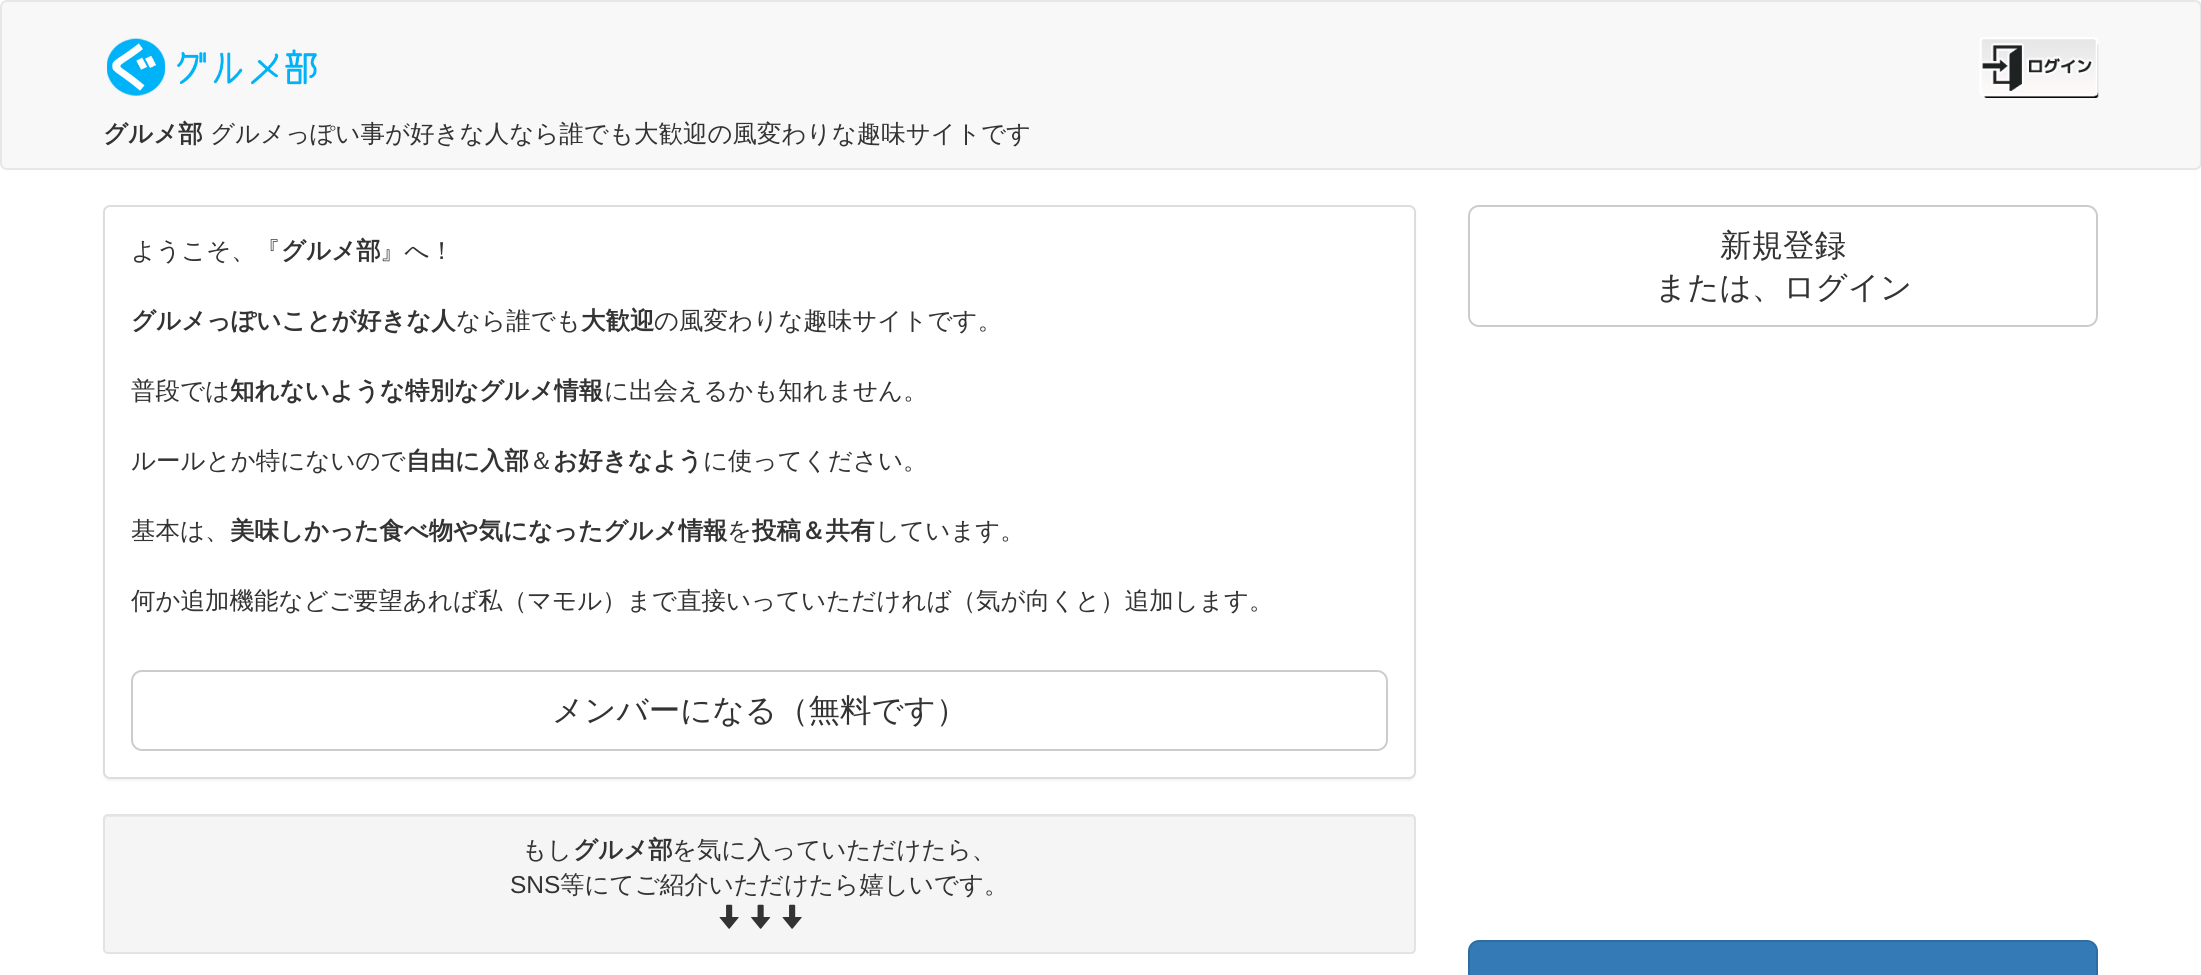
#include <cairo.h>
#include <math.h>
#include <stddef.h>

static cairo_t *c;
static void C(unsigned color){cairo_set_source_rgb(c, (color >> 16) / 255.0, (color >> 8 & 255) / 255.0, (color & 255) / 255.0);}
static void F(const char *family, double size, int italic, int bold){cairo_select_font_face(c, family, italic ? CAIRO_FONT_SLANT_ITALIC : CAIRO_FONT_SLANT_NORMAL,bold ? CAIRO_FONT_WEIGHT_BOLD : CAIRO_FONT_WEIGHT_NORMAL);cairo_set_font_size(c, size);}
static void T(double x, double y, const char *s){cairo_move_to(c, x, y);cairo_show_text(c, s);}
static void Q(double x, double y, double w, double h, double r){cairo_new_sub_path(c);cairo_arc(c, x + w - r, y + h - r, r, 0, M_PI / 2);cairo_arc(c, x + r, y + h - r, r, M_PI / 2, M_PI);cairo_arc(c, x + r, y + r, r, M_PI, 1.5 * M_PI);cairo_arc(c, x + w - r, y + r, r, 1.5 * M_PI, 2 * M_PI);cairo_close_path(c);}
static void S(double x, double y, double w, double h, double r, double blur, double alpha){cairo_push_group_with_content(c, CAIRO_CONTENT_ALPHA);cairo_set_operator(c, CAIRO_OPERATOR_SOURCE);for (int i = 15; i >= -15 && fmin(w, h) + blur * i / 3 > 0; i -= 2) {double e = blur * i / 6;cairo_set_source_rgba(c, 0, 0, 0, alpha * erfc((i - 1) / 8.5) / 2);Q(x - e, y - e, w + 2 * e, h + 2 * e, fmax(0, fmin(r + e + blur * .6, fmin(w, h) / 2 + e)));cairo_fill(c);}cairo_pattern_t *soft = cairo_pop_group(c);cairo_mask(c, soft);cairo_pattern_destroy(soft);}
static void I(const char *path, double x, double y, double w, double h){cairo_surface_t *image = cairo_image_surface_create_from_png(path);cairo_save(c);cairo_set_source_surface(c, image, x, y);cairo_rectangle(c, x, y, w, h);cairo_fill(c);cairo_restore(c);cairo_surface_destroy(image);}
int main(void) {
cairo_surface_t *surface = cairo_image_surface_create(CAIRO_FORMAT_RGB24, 2201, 975);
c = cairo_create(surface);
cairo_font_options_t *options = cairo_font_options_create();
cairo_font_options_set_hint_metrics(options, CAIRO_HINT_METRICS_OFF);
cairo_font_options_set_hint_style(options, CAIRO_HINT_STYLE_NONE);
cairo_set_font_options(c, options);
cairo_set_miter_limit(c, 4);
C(0xffffff);
cairo_paint(c);
C(0xf8f8f8);
Q(1,1,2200,168,6);
cairo_fill_preserve(c);
C(0xe7e7e7);
cairo_stroke(c);
I("1.png",107,38,210,58);
I("2.png",1979,37,120,61);
F("WenQuanYi Zen Hei",24.5,0,1);
C(0x333333);
T(103,142,"グルメ部");
F("WenQuanYi Zen Hei Medium",24.5,0,0);
T(210,142,"グルメっぽい事が好きな人なら誰でも大歓迎の風変わりな趣味サイトです");
C(0x000000);
S(103,207,1313,574,7,1,.05);
C(0xffffff);
Q(104,206,1311,572,6);
cairo_fill_preserve(c);
C(0xdddddd);
cairo_stroke(c);
C(0x333333);
T(131,259,"ようこそ、『");
F("WenQuanYi Zen Hei",24.5,0,1);
T(281,259,"グルメ部");
F("WenQuanYi Zen Hei Medium",24.5,0,0);
T(380,259,"』へ！");
F("WenQuanYi Zen Hei",24.5,0,1);
T(131,329,"グルメっぽいことが好きな人");
F("WenQuanYi Zen Hei Medium",24.5,0,0);
T(456,329,"なら誰でも");
F("WenQuanYi Zen Hei",24.5,0,1);
T(581,329,"大歓迎");
F("WenQuanYi Zen Hei Medium",24.5,0,0);
T(654,329,"の風変わりな趣味サイトです。");
T(131,399,"普段では");
F("WenQuanYi Zen Hei",24.5,0,1);
T(230,399,"知れないような特別なグルメ情報");
F("WenQuanYi Zen Hei Medium",24.5,0,0);
T(604,399,"に出会えるかも知れません。");
T(131,469,"ルールとか特にないので");
F("WenQuanYi Zen Hei",24.5,0,1);
T(406,469,"自由に入部");
F("WenQuanYi Zen Hei Medium",24.5,0,0);
T(529,469,"＆");
F("WenQuanYi Zen Hei",24.5,0,1);
T(553,469,"お好きなよう");
F("WenQuanYi Zen Hei Medium",24.5,0,0);
T(703,469,"に使ってください。");
T(131,539,"基本は、");
F("WenQuanYi Zen Hei",24.5,0,1);
T(230,539,"美味しかった食べ物や気になったグルメ情報");
F("WenQuanYi Zen Hei Medium",24.5,0,0);
T(727,539,"を");
F("WenQuanYi Zen Hei",24.5,0,1);
T(752,539,"投稿＆共有");
F("WenQuanYi Zen Hei Medium",24.5,0,0);
T(875,539,"しています。");
T(131,609,"何か追加機能などご要望あれば私（マモル）まで直接いっていただければ（気が向くと）追加します。");
Q(132,671,1255,79,10);
C(0xcccccc);
cairo_stroke(c);
F("WenQuanYi Zen Hei Medium",31.5,0,0);
C(0x333333);
T(552,721,"メンバーになる（無料です）");
C(0xf5f5f5);
Q(103,814,1313,140,5);
cairo_fill(c);
C(0xe9e9e9);
cairo_new_path(c);
cairo_move_to(c,108,817);
cairo_line_to(c,1410,817);
cairo_curve_to(c,1412,817,1414,819,1414,821);
cairo_line_to(c,1414,820);
cairo_curve_to(c,1414,818,1412,816,1410,816);
cairo_line_to(c,109,816);
cairo_curve_to(c,107,816,105,818,105,820);
cairo_line_to(c,105,821);
cairo_curve_to(c,105,819,107,817,108,817);
cairo_close_path(c);
cairo_fill(c);
Q(104,815,1311,138,4);
C(0xe3e3e3);
cairo_stroke(c);
F("WenQuanYi Zen Hei Medium",24.5,0,0);
C(0x333333);
T(522,858,"もし");
F("WenQuanYi Zen Hei",24.5,0,1);
T(573,858,"グルメ部");
F("WenQuanYi Zen Hei Medium",24.5,0,0);
T(672,858,"を気に入っていただけたら、");
F("Liberation Sans",24.5,0,0);
T(510,893,"SNS");
F("WenQuanYi Zen Hei Medium",24.5,0,0);
T(560,893,"等にてご紹介いただけたら嬉しいです。");
I("3.png",719,904,20,25);
I("4.png",751,904,20,25);
I("3.png",782,904,20,25);
Q(1469,206,628,120,10);
C(0xcccccc);
cairo_stroke(c);
F("WenQuanYi Zen Hei Medium",31.5,0,0);
C(0x333333);
T(1720,256,"新規登録");
T(1655,298,"または、ログイン");
C(0x337ab7);
Q(1469,941,628,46,10);
cairo_fill_preserve(c);
C(0x2e6da4);
cairo_stroke(c);
cairo_surface_write_to_png(surface, "o.png");
cairo_font_options_destroy(options);
cairo_destroy(c);
cairo_surface_destroy(surface);
return 0;
}
